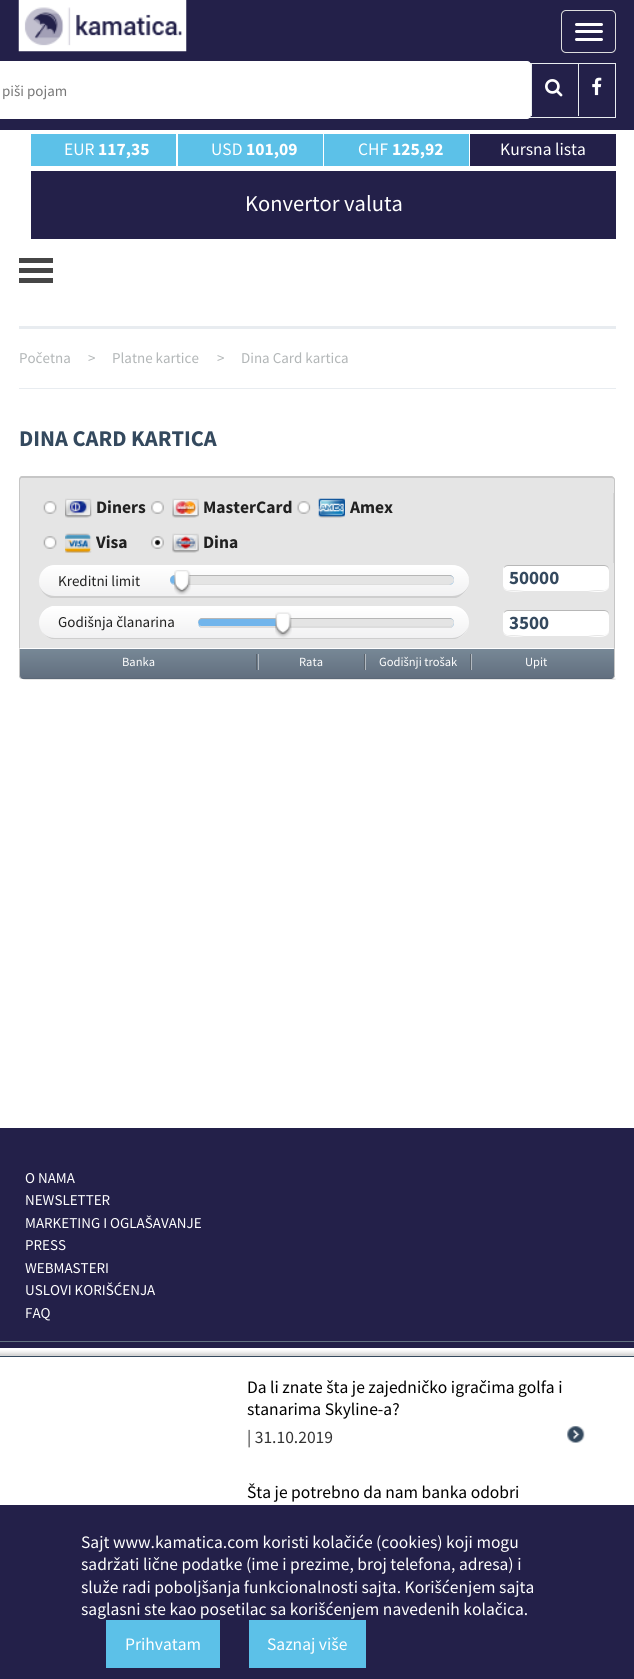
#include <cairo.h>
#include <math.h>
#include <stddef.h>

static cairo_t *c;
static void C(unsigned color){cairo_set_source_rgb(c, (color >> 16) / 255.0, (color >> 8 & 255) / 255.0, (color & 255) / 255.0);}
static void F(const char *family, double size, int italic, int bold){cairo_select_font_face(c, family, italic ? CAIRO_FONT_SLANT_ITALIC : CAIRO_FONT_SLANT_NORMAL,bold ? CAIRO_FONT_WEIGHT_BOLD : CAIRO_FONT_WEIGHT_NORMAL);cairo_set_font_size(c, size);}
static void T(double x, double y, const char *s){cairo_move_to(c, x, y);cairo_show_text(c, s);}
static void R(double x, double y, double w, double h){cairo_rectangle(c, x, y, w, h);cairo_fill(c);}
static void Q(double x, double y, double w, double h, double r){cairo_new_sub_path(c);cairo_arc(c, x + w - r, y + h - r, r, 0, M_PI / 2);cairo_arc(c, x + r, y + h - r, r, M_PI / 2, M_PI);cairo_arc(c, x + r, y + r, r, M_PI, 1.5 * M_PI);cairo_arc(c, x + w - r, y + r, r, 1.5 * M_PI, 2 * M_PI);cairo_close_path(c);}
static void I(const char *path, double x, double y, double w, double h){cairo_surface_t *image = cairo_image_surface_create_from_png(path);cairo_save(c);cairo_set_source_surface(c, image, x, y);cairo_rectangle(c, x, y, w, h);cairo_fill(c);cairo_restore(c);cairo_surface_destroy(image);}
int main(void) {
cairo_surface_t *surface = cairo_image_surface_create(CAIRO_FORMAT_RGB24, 634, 1679);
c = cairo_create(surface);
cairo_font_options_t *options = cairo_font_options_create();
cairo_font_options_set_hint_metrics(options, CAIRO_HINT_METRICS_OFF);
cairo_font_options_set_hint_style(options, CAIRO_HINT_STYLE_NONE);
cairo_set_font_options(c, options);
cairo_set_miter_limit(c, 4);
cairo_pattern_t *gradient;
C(0xffffff);
cairo_paint(c);
C(0x232049);
R(0,0,634,130);
I("1.png",18,0,169,52);
Q(561.5,10.5,54,42,4.5);
C(0xdddddd);
cairo_set_line_width(c,1);
cairo_stroke(c);
C(0xffffff);
Q(575,23,28,3,1.5);
cairo_fill(c);
Q(575,30,28,3,1.5);
cairo_fill(c);
Q(575,38,28,3,1.5);
cairo_fill(c);
cairo_rectangle(c,19.5,63.5,596,54);
C(0xe8ecf0);
cairo_stroke(c);
R(531,64,1,52);
C(0xffffff);
Q(-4,61,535,58,4);
cairo_fill(c);
F("Source Sans Pro",15,0,0);
C(0x777777);
T(2,96,"piši pojam");
I("2.png",545,79,18,18);
C(0xe8ecf0);
R(578,64,1,52);
I("3.png",592,77,10,19);
R(19,326,597,3);
C(0x5cc1e8);
R(31,134,145,32);
F("Source Sans Pro",17.5,0,0);
C(0xffffff);
T(64,155,"EUR");
F("Source Sans Pro",17.5,0,1);
T(98,155,"117,35");
C(0x5cc1e8);
R(178,134,145,32);
F("Source Sans Pro",17.5,0,0);
C(0xffffff);
T(211,155,"USD");
F("Source Sans Pro",17.5,0,1);
T(246,155,"101,09");
C(0x5cc1e8);
R(324,134,145,32);
F("Source Sans Pro",17.5,0,0);
C(0xffffff);
T(358,155,"CHF");
F("Source Sans Pro",17.5,0,1);
T(392,155,"125,92");
C(0x232049);
R(470,134,146,32);
F("Source Sans Pro",17.5,0,0);
C(0xffffff);
T(500,155,"Kursna lista");
C(0x232049);
R(31,171,585,68);
F("Source Sans Pro",22.5,0,0);
C(0xffffff);
T(245,211,"Konvertor valuta");
C(0x464646);
R(19,268,34,5);
R(19,258,34,5);
R(19,278,34,5);
C(0xe8ecf0);
R(19,388,597,1);
F("Source Sans Pro",15,0,0);
C(0xb2b6b7);
T(19,363,"Početna");
T(88,363,">");
T(112,363,"Platne kartice");
T(217,363,">");
T(241,363,"Dina Card kartica");
F("Source Sans Pro",22.5,0,1);
C(0x34495e);
T(19,446,"DINA CARD KARTICA");
C(0xe5e5e5);
cairo_new_path(c);
cairo_move_to(c,23,476);
cairo_line_to(c,611,476);
cairo_curve_to(c,613,476,615,478,615,480);
cairo_line_to(c,615,648);
cairo_line_to(c,19,648);
cairo_line_to(c,19,480);
cairo_curve_to(c,19,478,21,476,23,476);
cairo_close_path(c);
cairo_fill(c);
C(0xc6c6c6);
cairo_set_fill_rule(c,CAIRO_FILL_RULE_EVEN_ODD);
cairo_new_path(c);
cairo_move_to(c,22,476);
cairo_line_to(c,611,476);
cairo_curve_to(c,613,476,615,478,615,480);
cairo_line_to(c,615,648);
cairo_line_to(c,19,648);
cairo_line_to(c,19,480);
cairo_curve_to(c,19,478,20,476,22,476);
cairo_close_path(c);
cairo_move_to(c,22,478);
cairo_line_to(c,611,478);
cairo_curve_to(c,613,478,614,479,614,480);
cairo_line_to(c,614,648);
cairo_line_to(c,20,648);
cairo_line_to(c,20,480);
cairo_line_to(c,21,478);
cairo_close_path(c);
cairo_fill(c);
C(0xd5d5d5);
R(613,493,1,70);
I("4.png",43,501,14,13);
I("5.png",65,498,27,20);
F("Source Sans Pro",17.5,0,1);
C(0x212121);
T(96,513,"Diners");
I("4.png",43,536,14,13);
I("6.png",65,533,27,20);
T(96,548,"Visa");
I("7.png",151,501,13,13);
I("8.png",172,498,27,20);
T(203,513,"MasterCard");
I("9.png",151,536,13,13);
I("10.png",172,533,27,20);
T(203,548,"Dina");
I("11.png",297,501,14,13);
I("12.png",318,498,27,20);
T(350,513,"Amex");
cairo_save(c);
cairo_set_fill_rule(c,CAIRO_FILL_RULE_WINDING);
Q(39,565,430,33,16.5);
cairo_clip(c);
gradient = cairo_pattern_create_linear(254,536,254,566);
cairo_pattern_add_color_stop_rgba(gradient,0,1,1,1,1);
cairo_pattern_add_color_stop_rgba(gradient,1,0.945,0.945,0.949,1);
cairo_set_source(c,gradient);
cairo_pattern_destroy(gradient);
R(50,565,408,1);
gradient = cairo_pattern_create_linear(254,566,254,596);
cairo_pattern_add_color_stop_rgba(gradient,0,1,1,1,1);
cairo_pattern_add_color_stop_rgba(gradient,1,0.945,0.945,0.949,1);
cairo_set_source(c,gradient);
cairo_pattern_destroy(gradient);
R(39,566,430,30);
cairo_restore(c);
C(0xffffff);
cairo_set_fill_rule(c,CAIRO_FILL_RULE_WINDING);
cairo_new_path(c);
cairo_move_to(c,55,565);
cairo_line_to(c,452,565);
cairo_curve_to(c,460,565,467,571,469,578);
cairo_line_to(c,469,579);
cairo_curve_to(c,467,572,460,566,452,566);
cairo_line_to(c,55,566);
cairo_curve_to(c,46,566,39,573,39,581);
cairo_curve_to(c,39,572,46,565,55,565);
cairo_close_path(c);
cairo_fill(c);
C(0xcecece);
cairo_new_path(c);
cairo_move_to(c,51,598);
cairo_curve_to(c,44,596,39,589,39,582);
cairo_curve_to(c,39,590,46,596,55,596);
cairo_line_to(c,452,596);
cairo_curve_to(c,460,596,467,591,469,584);
cairo_curve_to(c,468,590,462,596,456,598);
cairo_close_path(c);
cairo_fill(c);
F("Source Sans Pro",15,0,0);
C(0x212121);
T(58,586,"Kreditni limit");
C(0x71b5ec);
Q(170,575,284,10,5);
cairo_fill(c);
C(0xb6b6b6);
cairo_new_path(c);
cairo_move_to(c,175,575);
cairo_curve_to(c,173,575,170,578,170,580);
cairo_curve_to(c,170,577,172,576,175,576);
cairo_line_to(c,449,576);
cairo_line_to(c,453,577);
cairo_line_to(c,454,580);
cairo_curve_to(c,454,577,452,575,449,575);
cairo_close_path(c);
cairo_fill(c);
C(0xdddddd);
cairo_new_path(c);
cairo_move_to(c,175,585);
cairo_line_to(c,449,585);
cairo_curve_to(c,451,585,452,584,453,582);
cairo_line_to(c,454,581);
cairo_line_to(c,454,580);
cairo_curve_to(c,454,583,452,584,449,584);
cairo_line_to(c,175,584);
cairo_line_to(c,171,583);
cairo_line_to(c,170,580);
cairo_curve_to(c,170,582,173,585,175,585);
cairo_close_path(c);
cairo_fill(c);
C(0xe4e4e4);
Q(184,576,270,8,4);
cairo_fill(c);
I("13.png",174,570,17,25);
cairo_save(c);
Q(39,606,430,33,16.5);
cairo_clip(c);
gradient = cairo_pattern_create_linear(254,608,254,638);
cairo_pattern_add_color_stop_rgba(gradient,0,1,1,1,1);
cairo_pattern_add_color_stop_rgba(gradient,1,0.945,0.945,0.949,1);
cairo_set_source(c,gradient);
cairo_pattern_destroy(gradient);
R(39,608,430,30);
cairo_restore(c);
C(0xffffff);
cairo_new_path(c);
cairo_move_to(c,55,608);
cairo_curve_to(c,46,608,39,614,39,622);
cairo_curve_to(c,39,615,45,608,52,606);
cairo_line_to(c,455,606);
cairo_curve_to(c,462,607,467,613,469,620);
cairo_curve_to(c,467,613,460,608,452,608);
cairo_close_path(c);
cairo_fill(c);
C(0xcecece);
cairo_new_path(c);
cairo_move_to(c,52,639);
cairo_curve_to(c,45,637,40,631,39,623);
cairo_curve_to(c,40,632,46,638,55,638);
cairo_line_to(c,452,638);
cairo_curve_to(c,460,638,467,632,469,625);
cairo_curve_to(c,467,632,462,637,455,639);
cairo_close_path(c);
cairo_fill(c);
C(0x212121);
T(58,627,"Godišnja članarina");
C(0x71b5ec);
Q(198,618,256,10,5);
cairo_fill(c);
C(0xb6b6b6);
cairo_new_path(c);
cairo_move_to(c,202,618);
cairo_curve_to(c,200,618,198,620,198,622);
cairo_curve_to(c,198,621,200,619,202,619);
cairo_line_to(c,449,619);
cairo_curve_to(c,451,619,454,620,454,622);
cairo_curve_to(c,454,620,452,618,449,618);
cairo_close_path(c);
cairo_fill(c);
C(0xdddddd);
cairo_set_fill_rule(c,CAIRO_FILL_RULE_EVEN_ODD);
cairo_new_path(c);
cairo_move_to(c,198,623);
cairo_line_to(c,198,622);
cairo_line_to(c,199,625);
cairo_line_to(c,198,625);
cairo_close_path(c);
cairo_move_to(c,201,628);
cairo_line_to(c,199,625);
cairo_line_to(c,201,626);
cairo_line_to(c,449,626);
cairo_curve_to(c,452,626,454,624,454,622);
cairo_curve_to(c,454,624,453,627,451,628);
cairo_close_path(c);
cairo_fill(c);
C(0xe4e4e4);
Q(285,619,169,7,3.5);
cairo_fill(c);
I("14.png",275,612,17,26);
C(0xffffff);
cairo_set_fill_rule(c,CAIRO_FILL_RULE_WINDING);
cairo_new_path(c);
cairo_move_to(c,503,588);
cairo_curve_to(c,506,594,523,591,524,591);
cairo_line_to(c,588,591);
cairo_curve_to(c,589,591,607,595,609,587);
cairo_line_to(c,609,569);
cairo_line_to(c,609,586);
cairo_curve_to(c,607,594,589,590,588,590);
cairo_line_to(c,524,590);
cairo_curve_to(c,523,590,507,593,503,588);
cairo_close_path(c);
cairo_fill(c);
Q(503,565,106,25,5);
cairo_fill(c);
C(0xb7b7b7);
cairo_new_path(c);
cairo_move_to(c,508,566);
cairo_line_to(c,604,566);
cairo_curve_to(c,607,566,609,568,609,571);
cairo_line_to(c,609,570);
cairo_curve_to(c,609,567,607,565,604,565);
cairo_line_to(c,508,565);
cairo_curve_to(c,506,565,504,566,504,568);
cairo_curve_to(c,505,567,506,566,508,566);
cairo_close_path(c);
cairo_fill(c);
F("Source Sans Pro",19,0,1);
C(0x34495e);
T(509,584,"50000");
C(0xffffff);
cairo_new_path(c);
cairo_move_to(c,503,633);
cairo_curve_to(c,506,639,523,636,524,636);
cairo_line_to(c,588,636);
cairo_curve_to(c,589,636,607,640,609,632);
cairo_line_to(c,609,614);
cairo_line_to(c,609,631);
cairo_curve_to(c,607,639,589,635,588,635);
cairo_line_to(c,524,635);
cairo_curve_to(c,523,635,507,638,503,633);
cairo_close_path(c);
cairo_fill(c);
Q(503,610,106,25,5);
cairo_fill(c);
C(0xb7b7b7);
cairo_new_path(c);
cairo_move_to(c,508,611);
cairo_line_to(c,604,611);
cairo_curve_to(c,607,611,609,613,609,616);
cairo_line_to(c,609,615);
cairo_curve_to(c,609,612,607,610,604,610);
cairo_line_to(c,508,610);
cairo_curve_to(c,506,610,504,611,504,613);
cairo_curve_to(c,505,612,506,611,508,611);
cairo_close_path(c);
cairo_fill(c);
C(0x34495e);
T(509,629,"3500");
gradient = cairo_pattern_create_linear(317,649,317,679);
cairo_pattern_add_color_stop_rgba(gradient,0,0.467,0.533,0.588,1);
cairo_pattern_add_color_stop_rgba(gradient,1,0.38,0.431,0.494,1);
cairo_set_source(c,gradient);
cairo_pattern_destroy(gradient);
cairo_new_path(c);
cairo_move_to(c,19,649);
cairo_line_to(c,615,649);
cairo_line_to(c,615,675);
cairo_curve_to(c,615,677,613,679,611,679);
cairo_line_to(c,23,679);
cairo_curve_to(c,21,679,19,677,19,675);
cairo_close_path(c);
cairo_fill(c);
C(0xc6c6c6);
cairo_new_path(c);
cairo_move_to(c,613.5,649);
cairo_line_to(c,614.5,648);
cairo_line_to(c,615,648);
cairo_line_to(c,615,675);
cairo_curve_to(c,615,676.5,614,678,612.5,679);
cairo_line_to(c,612,679);
cairo_curve_to(c,613.5,678,614,676.5,614,675);
cairo_line_to(c,614,649);
cairo_close_path(c);
cairo_fill(c);
cairo_new_path(c);
cairo_move_to(c,19,648);
cairo_line_to(c,20,649);
cairo_line_to(c,20,675);
cairo_curve_to(c,20,676.5,20.5,678,21.5,679);
cairo_curve_to(c,19.5,679,19,676.5,19,675);
cairo_close_path(c);
cairo_fill(c);
C(0x5a636c);
R(256,654,1,16);
F("Source Sans Pro",12.5,0,0);
C(0xffffff);
T(122,666,"Banka");
C(0x5a636c);
R(364,654,1,16);
C(0xb2b9c0);
R(258,654,1,16);
C(0xffffff);
T(299,666,"Rata");
C(0x5a636c);
R(470,654,1,16);
C(0xb2b9c0);
R(365,654,1,16);
C(0xffffff);
T(379,666,"Godišnji trošak");
C(0xb2b9c0);
R(471,654,1,16);
C(0xffffff);
T(525,666,"Upit");
I("15.png",23,678,593,2);
C(0x232049);
R(0,1128,634,220);
C(0x637382);
R(0,1341,634,1);
F("Source Sans Pro",15,0,0);
C(0xffffff);
T(25,1183,"O NAMA");
T(25,1205,"NEWSLETTER");
T(25,1228,"MARKETING I OGLAŠAVANJE");
T(25,1250,"PRESS");
T(25,1273,"WEBMASTERI");
T(25,1295,"USLOVI KORIŠĆENJA");
T(25,1318,"FAQ");
I("16.png",0,1350,634,6);
C(0x34495e);
R(0,1356,634,1);
F("Source Sans Pro",17.5,0,0);
C(0x000000);
T(247,1393,"Da li znate šta je zajedničko igračima golfa i");
T(247,1415,"stanarima Skyline-a?");
C(0x333333);
T(247,1443,"| 31.10.2019");
I("17.png",567,1426,18,17);
C(0x000000);
T(247,1498,"Šta je potrebno da nam banka odobri");
C(0x232049);
R(0,1505,634,174);
C(0xffffff);
T(81,1548,"Sajt www.kamatica.com koristi kolačiće (cookies) koji mogu");
T(81,1570,"sadržati lične podatke (ime i prezime, broj telefona, adresa) i");
T(81,1593,"služe radi poboljšanja funkcionalnosti sajta. Korišćenjem sajta");
T(81,1615,"saglasni ste kao posetilac sa korišćenjem navedenih kolačica.");
C(0x5cc1e8);
R(106,1620,114,48);
C(0xffffff);
T(125,1650,"Prihvatam");
C(0x5cc1e8);
R(249,1620,117,48);
C(0xffffff);
T(267,1650,"Saznaj više");
cairo_surface_write_to_png(surface, "o.png");
cairo_font_options_destroy(options);
cairo_destroy(c);
cairo_surface_destroy(surface);
return 0;
}
